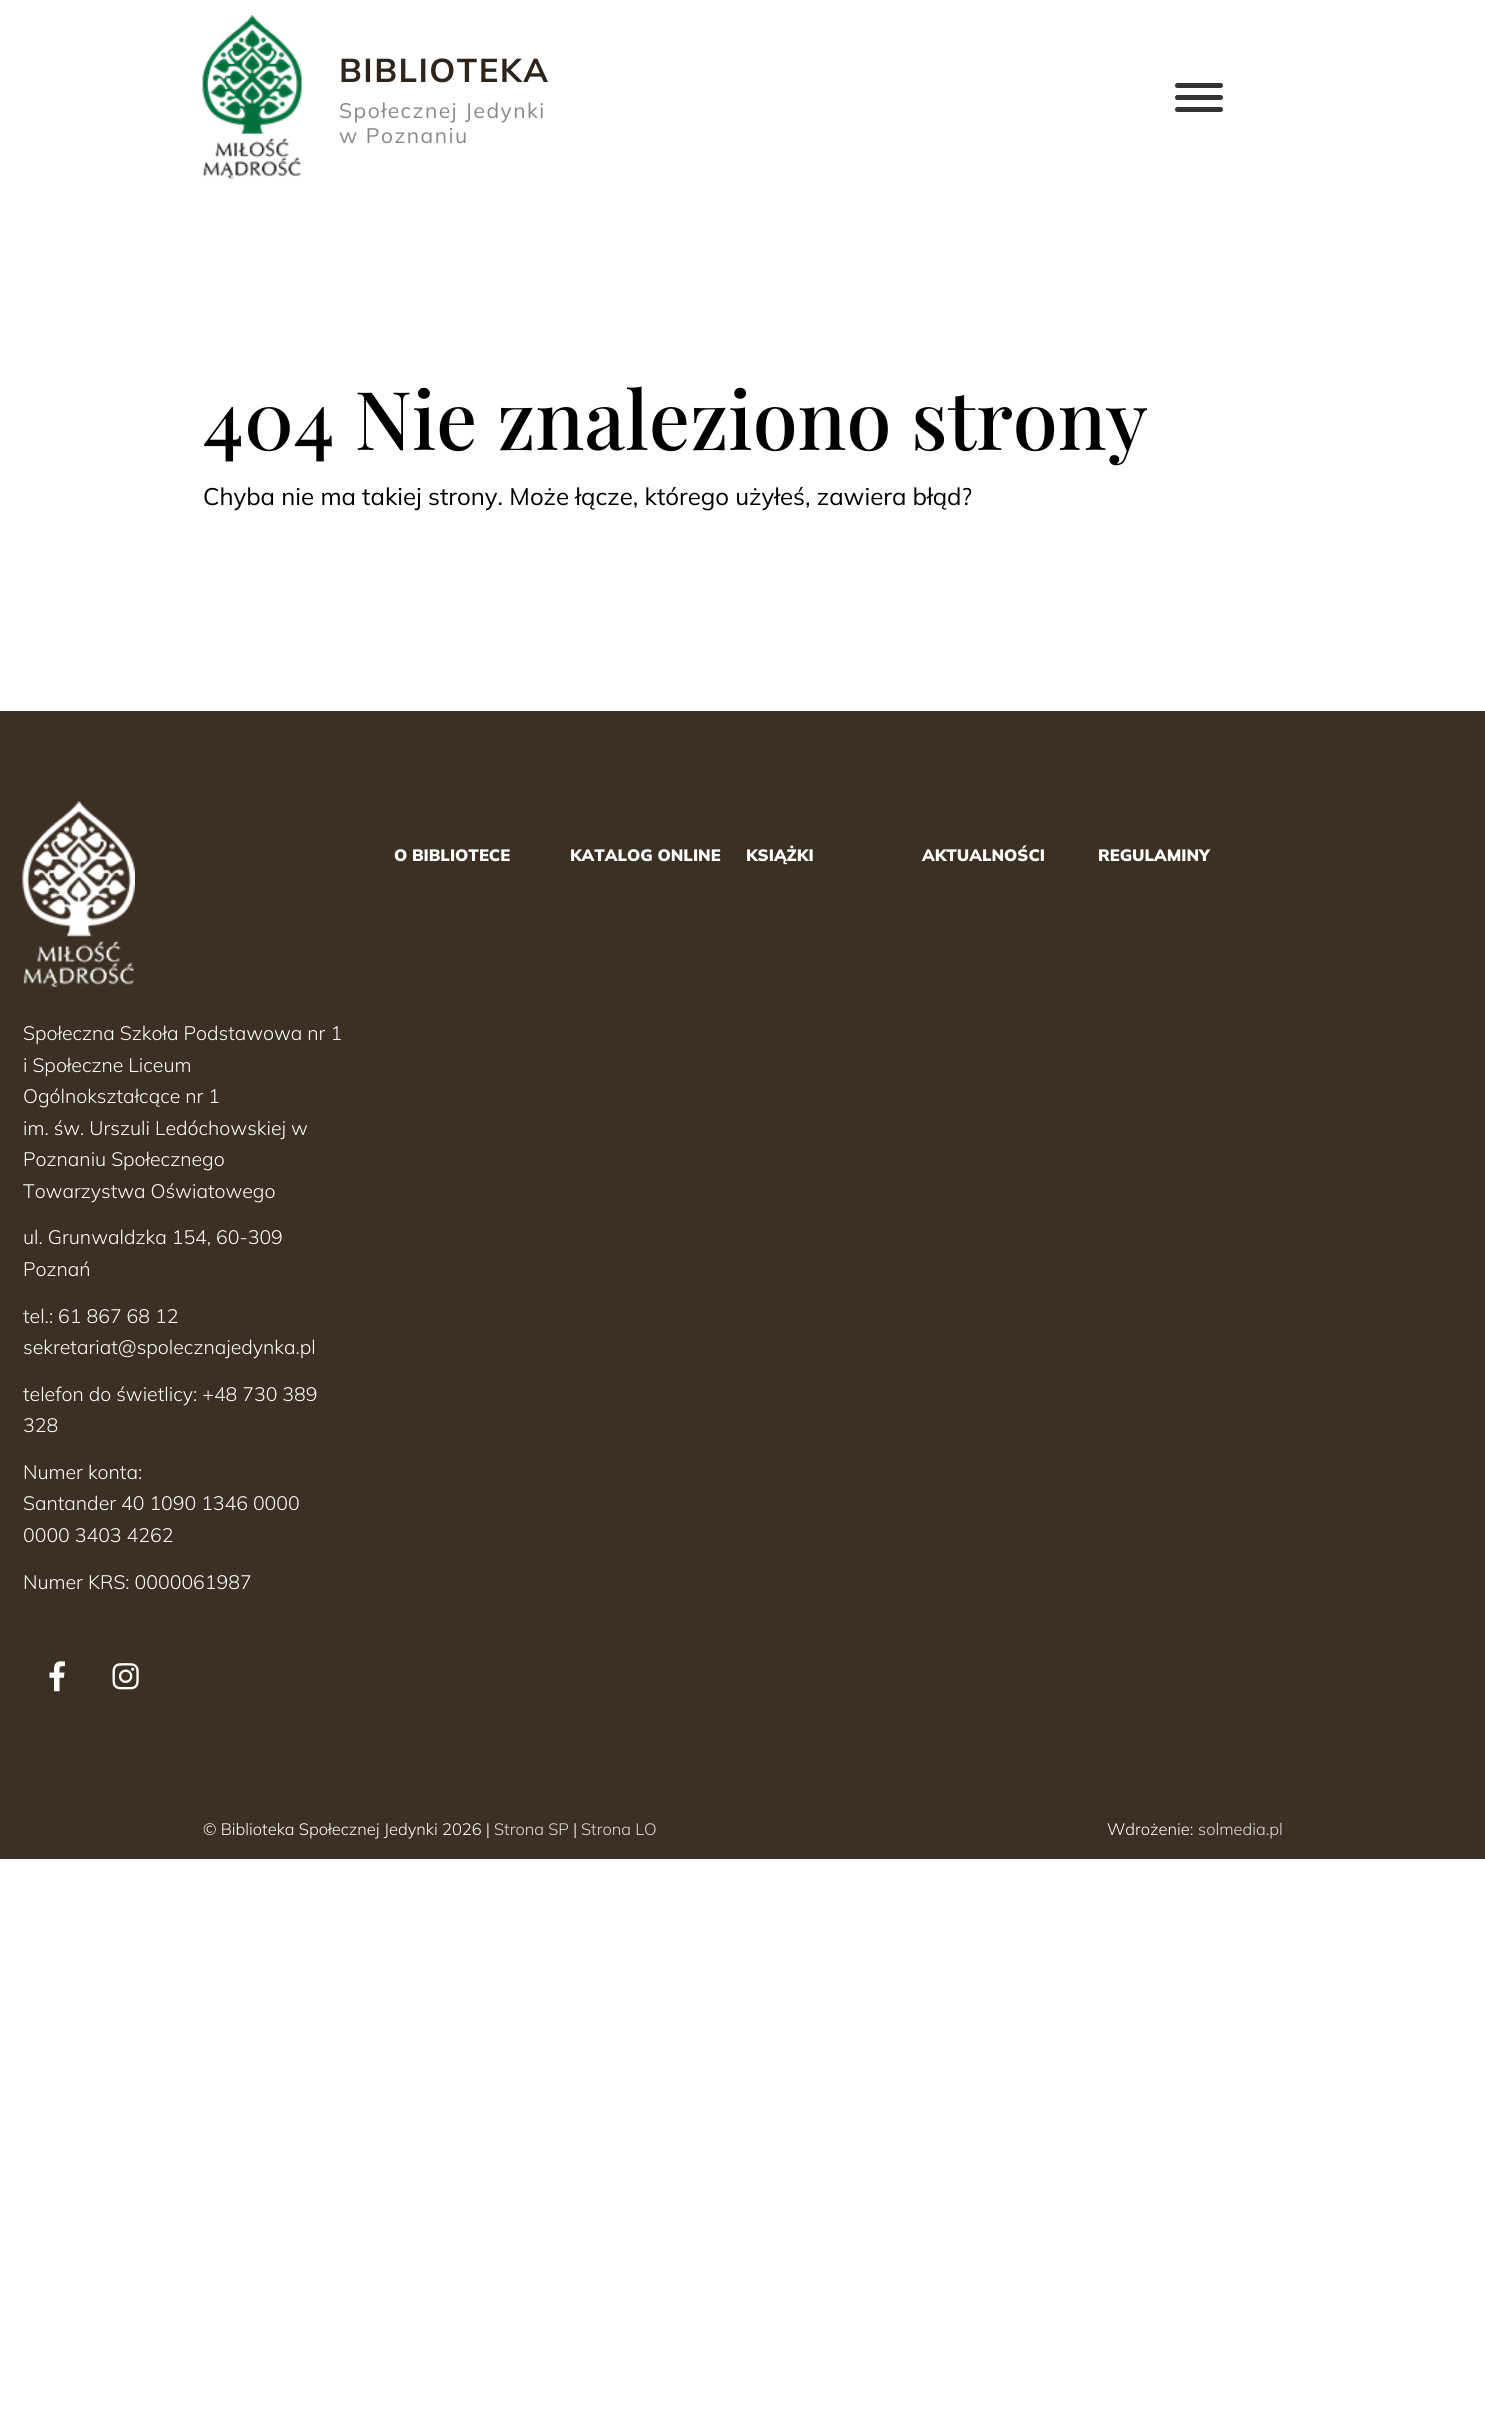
#include <cairo.h>
#include <math.h>
#include <stddef.h>

static cairo_t *c;
static void C(unsigned color){cairo_set_source_rgb(c, (color >> 16) / 255.0, (color >> 8 & 255) / 255.0, (color & 255) / 255.0);}
static void F(const char *family, double size, int italic, int bold){cairo_select_font_face(c, family, italic ? CAIRO_FONT_SLANT_ITALIC : CAIRO_FONT_SLANT_NORMAL,bold ? CAIRO_FONT_WEIGHT_BOLD : CAIRO_FONT_WEIGHT_NORMAL);cairo_set_font_size(c, size);}
static void T(double x, double y, const char *s){cairo_move_to(c, x, y);cairo_show_text(c, s);}
static void L(double x, double y, const char *s, double letter, double word){cairo_move_to(c, x, y);while (*s) {char ch[5] = {0};int n = 0;do ch[n++] = *s++; while ((*s & 0xC0) == 0x80);cairo_show_text(c, ch);cairo_rel_move_to(c, letter + word * (*ch == ' '), 0);}}
static void R(double x, double y, double w, double h){cairo_rectangle(c, x, y, w, h);cairo_fill(c);}
static void Q(double x, double y, double w, double h, double r){cairo_new_sub_path(c);cairo_arc(c, x + w - r, y + h - r, r, 0, M_PI / 2);cairo_arc(c, x + r, y + h - r, r, M_PI / 2, M_PI);cairo_arc(c, x + r, y + r, r, M_PI, 1.5 * M_PI);cairo_arc(c, x + w - r, y + r, r, 1.5 * M_PI, 2 * M_PI);cairo_close_path(c);}
static void I(const char *path, double x, double y, double w, double h){cairo_surface_t *image = cairo_image_surface_create_from_png(path);cairo_save(c);cairo_set_source_surface(c, image, x, y);cairo_rectangle(c, x, y, w, h);cairo_fill(c);cairo_restore(c);cairo_surface_destroy(image);}
int main(void) {
cairo_surface_t *surface = cairo_image_surface_create(CAIRO_FORMAT_RGB24, 1485, 2419);
c = cairo_create(surface);
cairo_font_options_t *options = cairo_font_options_create();
cairo_font_options_set_hint_metrics(options, CAIRO_HINT_METRICS_OFF);
cairo_font_options_set_hint_style(options, CAIRO_HINT_STYLE_NONE);
cairo_set_font_options(c, options);
cairo_set_miter_limit(c, 4);
C(0xffffff);
cairo_paint(c);
I("1.png",202,15,100,164);
F("Mulish",33,0,1);
C(0x2e241c);
L(339,82,"BIBLIOTEKA",1.5,0);
F("Mulish",21,0,0);
C(0x888888);
L(339,118,"Społecznej Jedynki",1.5,0);
L(339,143,"w Poznaniu",1.5,0);
C(0x333333);
Q(1175,83,48,5,2.5);
cairo_fill(c);
Q(1175,95,48,5,2.5);
cairo_fill(c);
Q(1175,107,48,5,2.5);
cairo_fill(c);
F("Playfair Display Medium",81,0,0);
C(0x000000);
T(203,450,"404 Nie znaleziono strony");
F("Mulish",24,0,0);
T(203,505,"Chyba nie ma takiej strony. Może łącze, którego użyłeś, zawiera błąd?");
C(0x3c2f23);
R(0,711,1485,1148);
F("Mulish Black",16.5,0,0);
C(0xffffff);
T(394,861,"O BIBLIOTECE");
T(570,861,"KATALOG ONLINE");
T(746,861,"KSIĄŻKI");
T(922,861,"AKTUALNOŚCI");
T(1098,861,"REGULAMINY");
I("2.png",22,801,113,186);
F("Mulish Light",19.5,0,0);
T(23,1040,"Społeczna Szkoła Podstawowa nr 1");
T(23,1072,"i Społeczne Liceum");
T(23,1103,"Ogólnokształcące nr 1");
T(23,1135,"im. św. Urszuli Ledóchowskiej w");
T(23,1166,"Poznaniu Społecznego");
T(23,1198,"Towarzystwa Oświatowego");
T(23,1244,"ul. Grunwaldzka 154, 60-309");
T(23,1276,"Poznań");
T(23,1323,"tel.: 61 867 68 12");
T(23,1354,"sekretariat@spolecznajedynka.pl");
T(23,1401,"telefon do świetlicy: +48 730 389");
T(23,1432,"328");
T(23,1479,"Numer konta:");
T(23,1510,"Santander 40 1090 1346 0000");
T(23,1542,"0000 3403 4262");
T(23,1589,"Numer KRS: 0000061987");
I("3.png",49,1661,16,31);
I("4.png",112,1663,27,27);
F("Mulish Light",16.5,0,0);
T(203,1835,"© Biblioteka Społecznej Jedynki 2026 |");
C(0xdddddd);
T(494,1835,"Strona SP");
C(0xffffff);
T(573,1835,"|");
C(0xdddddd);
T(581,1835,"Strona LO");
C(0xffffff);
T(1107,1835,"Wdrożenie:");
C(0xdddddd);
T(1198,1835,"solmedia.pl");
cairo_surface_write_to_png(surface, "o.png");
cairo_font_options_destroy(options);
cairo_destroy(c);
cairo_surface_destroy(surface);
return 0;
}
